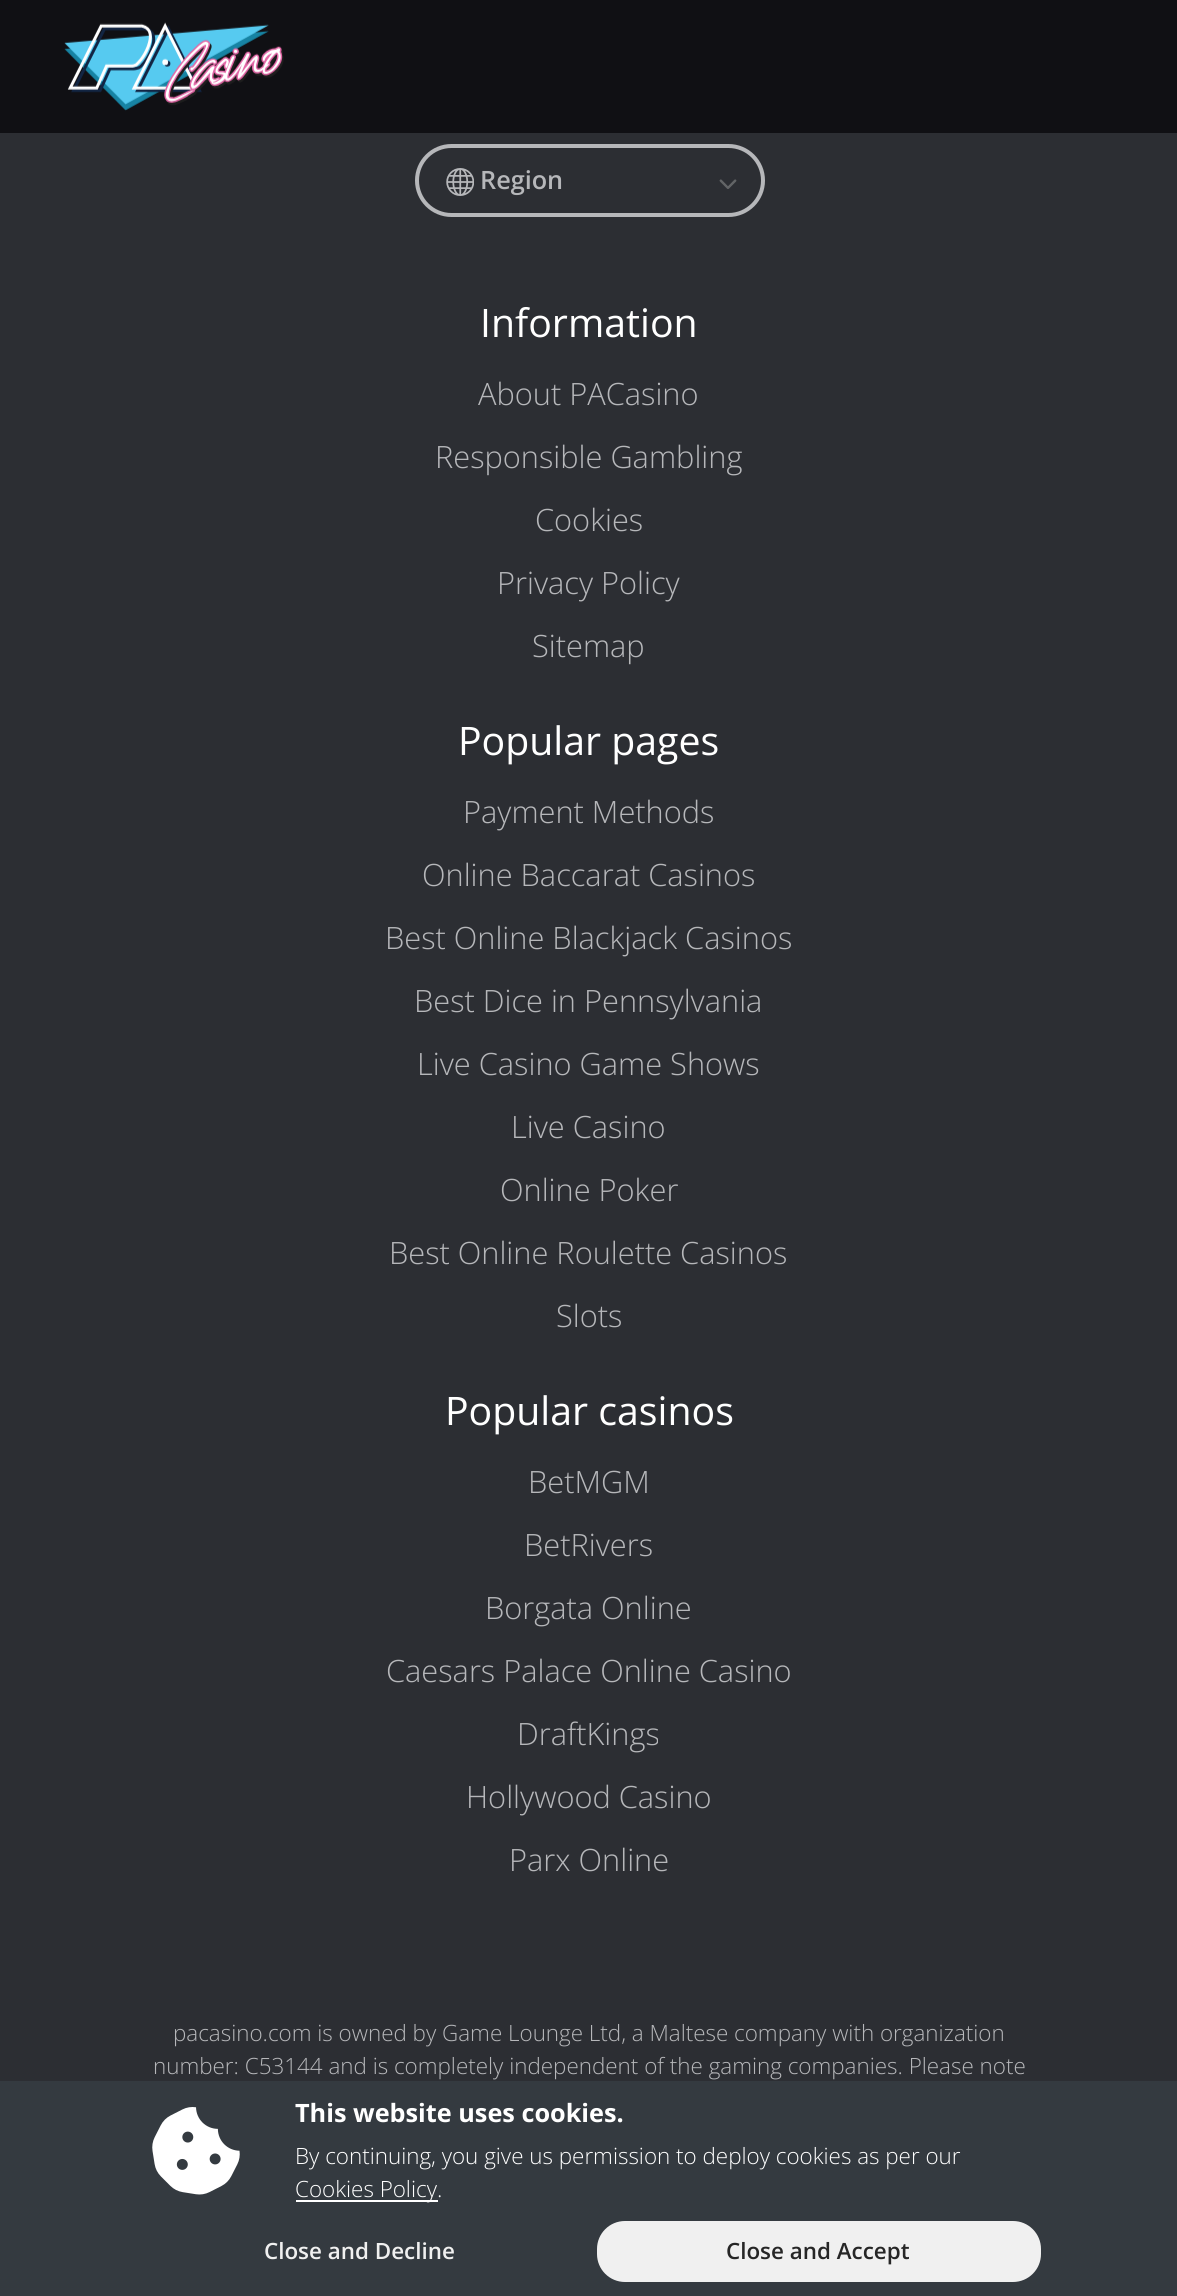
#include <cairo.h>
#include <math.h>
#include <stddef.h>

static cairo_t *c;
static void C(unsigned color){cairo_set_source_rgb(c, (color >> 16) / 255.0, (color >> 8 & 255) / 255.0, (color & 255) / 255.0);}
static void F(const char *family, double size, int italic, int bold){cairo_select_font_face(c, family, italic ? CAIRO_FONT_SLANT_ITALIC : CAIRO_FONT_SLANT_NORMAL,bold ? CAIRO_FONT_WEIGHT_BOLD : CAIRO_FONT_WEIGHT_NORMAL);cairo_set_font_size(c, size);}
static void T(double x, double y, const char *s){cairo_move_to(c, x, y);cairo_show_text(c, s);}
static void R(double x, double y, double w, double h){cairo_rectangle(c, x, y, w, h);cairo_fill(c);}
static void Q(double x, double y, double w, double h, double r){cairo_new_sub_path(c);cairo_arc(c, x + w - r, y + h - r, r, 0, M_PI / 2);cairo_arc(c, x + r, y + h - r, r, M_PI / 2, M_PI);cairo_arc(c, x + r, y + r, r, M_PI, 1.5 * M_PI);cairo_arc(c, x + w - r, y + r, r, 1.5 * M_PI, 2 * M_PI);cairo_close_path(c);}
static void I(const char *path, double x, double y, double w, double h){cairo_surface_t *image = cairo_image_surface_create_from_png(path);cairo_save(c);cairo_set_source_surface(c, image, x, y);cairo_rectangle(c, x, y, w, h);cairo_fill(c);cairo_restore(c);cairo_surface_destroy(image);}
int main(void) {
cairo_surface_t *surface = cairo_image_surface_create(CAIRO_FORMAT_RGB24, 1177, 2296);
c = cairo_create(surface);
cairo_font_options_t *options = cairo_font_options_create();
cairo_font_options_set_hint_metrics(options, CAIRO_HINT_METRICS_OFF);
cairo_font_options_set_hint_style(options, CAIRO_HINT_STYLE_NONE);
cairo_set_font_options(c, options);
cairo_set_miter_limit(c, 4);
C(0x2c2e33);
cairo_paint(c);
C(0x101014);
R(0,0,1177,133);
I("1.png",64,22,220,89);
Q(417,146,346,69,34.5);
C(0xb6b7ba);
cairo_set_line_width(c,4);
cairo_stroke(c);
I("2.png",446,168,28,28);
F("Open Sans SemiBold",25.25,0,0);
T(480,189,"Region");
I("3.png",719,179,18,10);
F("Open Sans",39.25,0,0);
C(0xffffff);
T(480,337,"Information");
F("Open Sans Light",30.75,0,0);
C(0xb6b7ba);
T(478,405,"About PACasino");
T(435,468,"Responsible Gambling");
T(535,531,"Cookies");
T(497,594,"Privacy Policy");
T(532,657,"Sitemap");
F("Open Sans",39.25,0,0);
C(0xffffff);
T(458,755,"Popular pages");
F("Open Sans Light",30.75,0,0);
C(0xb6b7ba);
T(463,823,"Payment Methods");
T(422,886,"Online Baccarat Casinos");
T(385,949,"Best Online Blackjack Casinos");
T(414,1012,"Best Dice in Pennsylvania");
T(417,1075,"Live Casino Game Shows");
T(511,1138,"Live Casino");
T(500,1201,"Online Poker");
T(389,1264,"Best Online Roulette Casinos");
T(556,1327,"Slots");
F("Open Sans",39.25,0,0);
C(0xffffff);
T(445,1425,"Popular casinos");
F("Open Sans Light",30.75,0,0);
C(0xb6b7ba);
T(528,1493,"BetMGM");
T(524,1556,"BetRivers");
T(485,1619,"Borgata Online");
T(386,1682,"Caesars Palace Online Casino");
T(517,1745,"DraftKings");
T(466,1808,"Hollywood Casino");
T(509,1871,"Parx Online");
F("Open Sans Light",22.4,0,0);
T(173,2041,"pacasino.com is owned by Game Lounge Ltd, a Maltese company with organization");
T(153,2074,"number: C53144 and is completely independent of the gaming companies. Please note");
C(0x343a40);
R(0,2081,1177,215);
I("4.png",152,2107,88,88);
F("Open Sans",25.25,0,1);
C(0xffffff);
T(295,2122,"This website uses cookies.");
F("Open Sans Light",22.4,0,0);
T(295,2164,"By continuing, you give us permission to deploy cookies as per our");
R(296,2200,142,2);
T(295,2197,"Cookies Policy.");
F("Open Sans SemiBold",22.4,0,0);
C(0xf0f0f0);
T(264,2259,"Close and Decline");
Q(597,2221,444,61,28);
cairo_fill(c);
C(0x262626);
T(726,2259,"Close and Accept");
cairo_surface_write_to_png(surface, "o.png");
cairo_font_options_destroy(options);
cairo_destroy(c);
cairo_surface_destroy(surface);
return 0;
}
